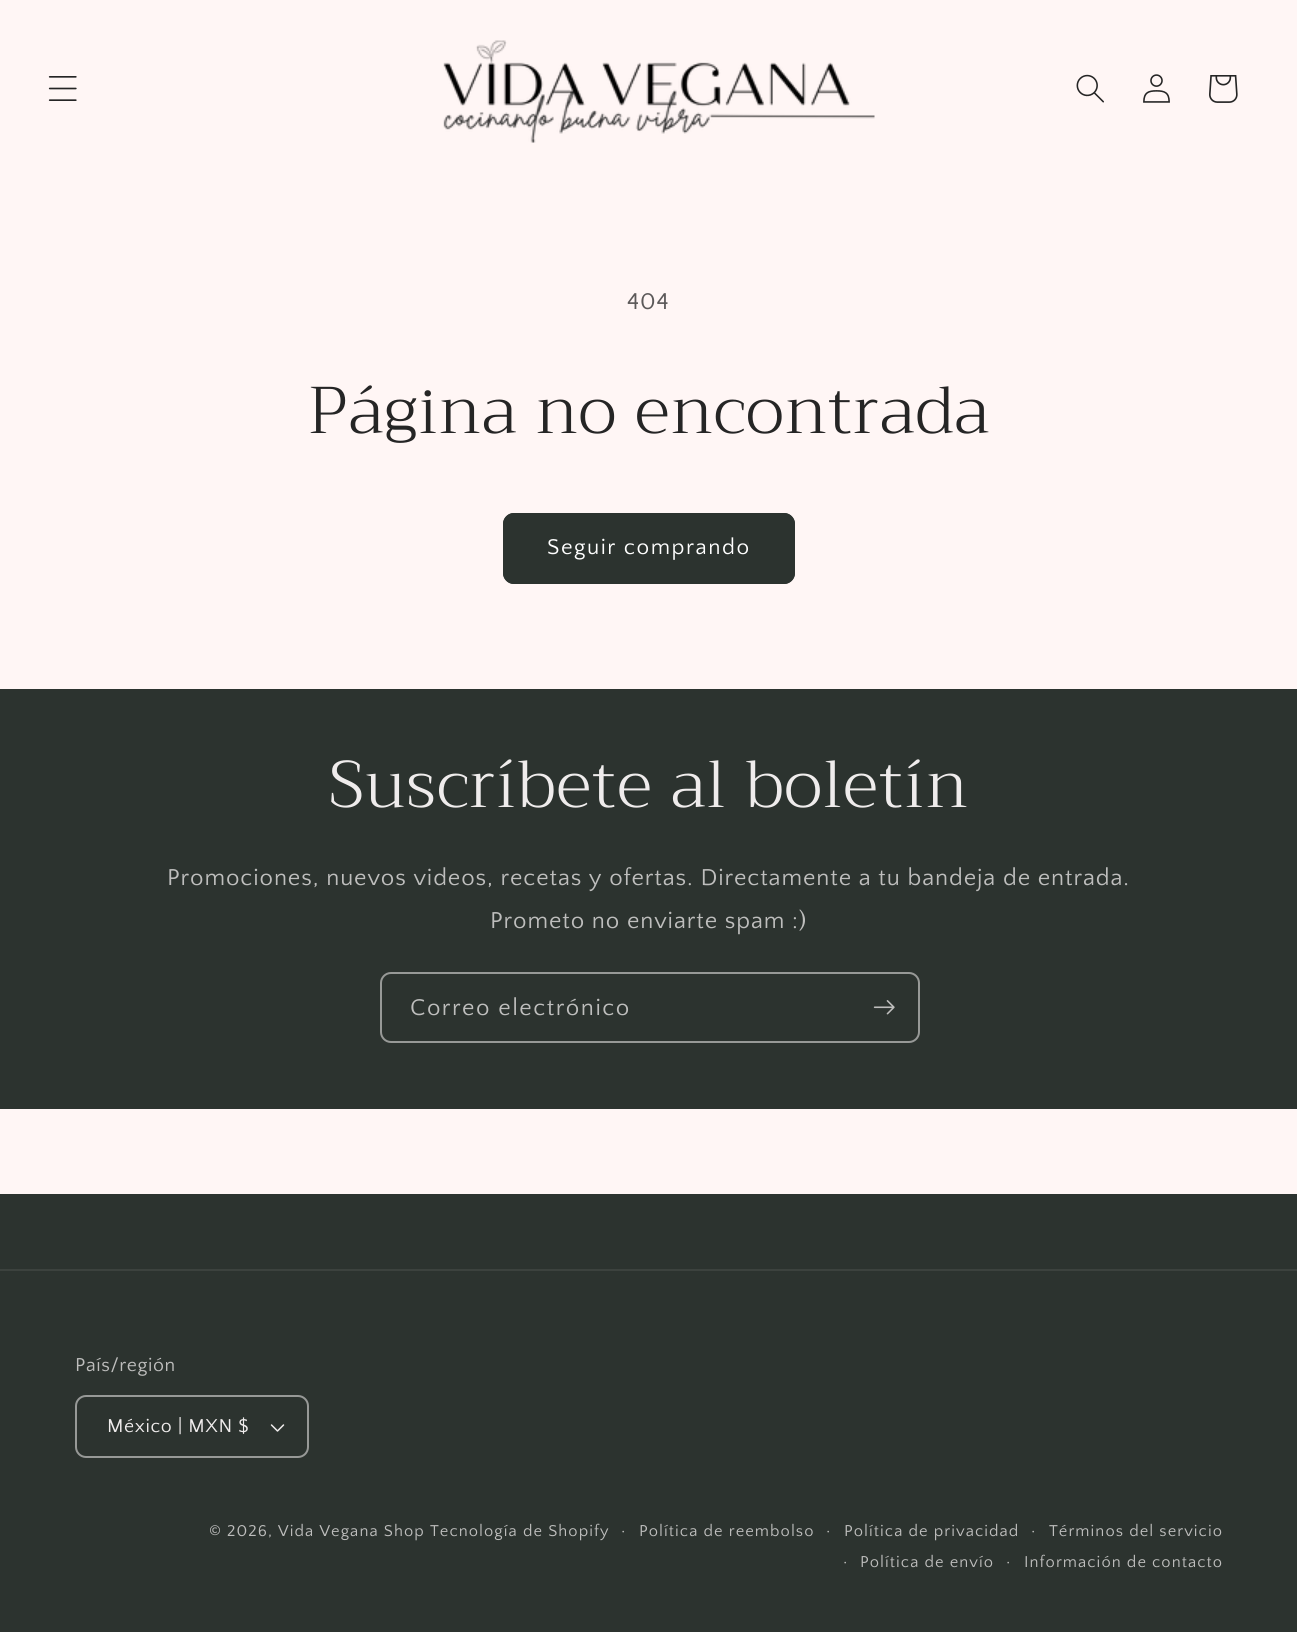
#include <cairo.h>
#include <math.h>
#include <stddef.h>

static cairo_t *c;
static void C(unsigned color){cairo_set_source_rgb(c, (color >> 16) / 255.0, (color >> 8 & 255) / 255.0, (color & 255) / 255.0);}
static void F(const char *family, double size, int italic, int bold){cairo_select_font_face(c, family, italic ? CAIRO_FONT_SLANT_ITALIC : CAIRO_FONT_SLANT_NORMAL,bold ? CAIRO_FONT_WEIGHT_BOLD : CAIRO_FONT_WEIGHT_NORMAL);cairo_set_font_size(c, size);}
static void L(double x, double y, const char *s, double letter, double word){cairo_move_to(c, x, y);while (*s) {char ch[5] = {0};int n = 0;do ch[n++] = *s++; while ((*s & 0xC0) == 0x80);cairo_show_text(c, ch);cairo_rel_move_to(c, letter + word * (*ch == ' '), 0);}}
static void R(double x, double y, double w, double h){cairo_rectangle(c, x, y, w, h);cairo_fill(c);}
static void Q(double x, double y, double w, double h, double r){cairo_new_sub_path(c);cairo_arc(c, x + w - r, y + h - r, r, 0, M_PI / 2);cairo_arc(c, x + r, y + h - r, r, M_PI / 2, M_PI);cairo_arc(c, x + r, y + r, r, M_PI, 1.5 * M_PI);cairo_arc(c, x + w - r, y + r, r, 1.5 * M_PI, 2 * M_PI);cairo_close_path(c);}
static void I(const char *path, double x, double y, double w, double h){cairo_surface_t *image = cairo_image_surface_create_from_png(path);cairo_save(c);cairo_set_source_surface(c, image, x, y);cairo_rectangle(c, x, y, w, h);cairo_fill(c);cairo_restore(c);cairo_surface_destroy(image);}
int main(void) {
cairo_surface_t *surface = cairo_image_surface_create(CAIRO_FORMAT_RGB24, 1297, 1632);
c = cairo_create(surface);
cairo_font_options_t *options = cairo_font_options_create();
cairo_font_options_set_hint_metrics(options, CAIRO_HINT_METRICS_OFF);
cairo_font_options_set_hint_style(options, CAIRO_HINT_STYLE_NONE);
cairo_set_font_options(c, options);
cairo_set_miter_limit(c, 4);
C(0xfff6f5);
cairo_paint(c);
I("1.png",48,76,29,25);
I("2.png",443,40,432,103);
I("3.png",1076,74,28,29);
I("4.png",1143,74,27,29);
I("5.png",1209,75,29,28);
F("Quattrocento Sans",24,0,0);
C(0x5c5959);
L(627,309,"404",.9,0);
F("Trirong Light",66,0,0);
C(0x252525);
L(308,433,"Página no encontrada",1,0);
C(0x2c332f);
Q(503,513,292,71,11);
cairo_fill(c);
Q(504,514,290,69,10);
cairo_stroke(c);
F("Quattrocento Sans",22.5,0,0);
C(0xffffff);
L(547,554,"Seguir comprando",1.5,0);
C(0x2c332f);
R(0,689,1297,420);
F("Trirong Light",66,0,0);
C(0xefecec);
L(329,807,"Suscríbete al boletín",1,0);
F("Quattrocento Sans",24,0,0);
C(0xbebebd);
L(167,885,"Promociones, nuevos videos, recetas y ofertas. Directamente a tu bandeja de entrada.",.9,0);
L(490,928,"Prometo no enviarte spam :)",.9,0);
Q(381,973,538,69,10);
C(0x979997);
cairo_stroke(c);
C(0xbebebd);
L(410,1015,"Correo electrónico",1.5,0);
I("6.png",873,1000,22,15);
C(0x2c332f);
R(0,1194,1297,438);
C(0x3c423e);
R(0,1269,1297,2);
F("Quattrocento Sans",19.5,0,0);
C(0xbebebd);
L(75,1371,"País/región",.6,0);
I("7.png",270,1424,15,8);
Q(76,1396,232,61,10);
C(0x979997);
cairo_stroke(c);
C(0xefecec);
L(107,1432,"México | MXN $",.6,0);
F("Quattrocento Sans",16.5,0,0);
C(0xbebebd);
L(209,1536,"© 2026, Vida Vegana Shop",1.05,0);
L(430,1536,"Tecnología de Shopify",1.05,0);
F("Quattrocento Sans",18,0,0);
L(621,1536,"·",1.05,0);
F("Quattrocento Sans",16.5,0,0);
L(639,1536,"Política de reembolso",1.05,0);
F("Quattrocento Sans",18,0,0);
L(826,1536,"·",1.05,0);
F("Quattrocento Sans",16.5,0,0);
L(844,1536,"Política de privacidad",1.05,0);
F("Quattrocento Sans",18,0,0);
L(1031,1536,"·",1.05,0);
F("Quattrocento Sans",16.5,0,0);
L(1049,1536,"Términos del servicio",1.05,0);
F("Quattrocento Sans",18,0,0);
L(843,1567,"·",1.05,0);
F("Quattrocento Sans",16.5,0,0);
L(860,1567,"Política de envío",1.05,0);
F("Quattrocento Sans",18,0,0);
L(1006,1567,"·",1.05,0);
F("Quattrocento Sans",16.5,0,0);
L(1024,1567,"Información de contacto",1.05,0);
cairo_surface_write_to_png(surface, "o.png");
cairo_font_options_destroy(options);
cairo_destroy(c);
cairo_surface_destroy(surface);
return 0;
}
